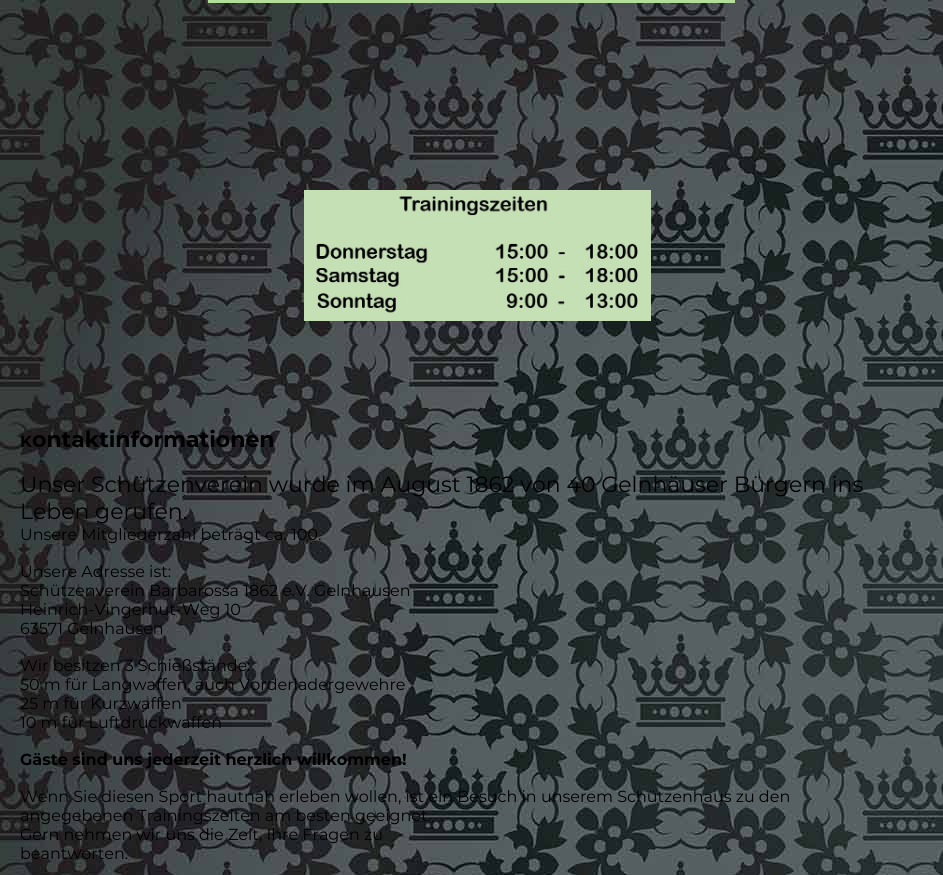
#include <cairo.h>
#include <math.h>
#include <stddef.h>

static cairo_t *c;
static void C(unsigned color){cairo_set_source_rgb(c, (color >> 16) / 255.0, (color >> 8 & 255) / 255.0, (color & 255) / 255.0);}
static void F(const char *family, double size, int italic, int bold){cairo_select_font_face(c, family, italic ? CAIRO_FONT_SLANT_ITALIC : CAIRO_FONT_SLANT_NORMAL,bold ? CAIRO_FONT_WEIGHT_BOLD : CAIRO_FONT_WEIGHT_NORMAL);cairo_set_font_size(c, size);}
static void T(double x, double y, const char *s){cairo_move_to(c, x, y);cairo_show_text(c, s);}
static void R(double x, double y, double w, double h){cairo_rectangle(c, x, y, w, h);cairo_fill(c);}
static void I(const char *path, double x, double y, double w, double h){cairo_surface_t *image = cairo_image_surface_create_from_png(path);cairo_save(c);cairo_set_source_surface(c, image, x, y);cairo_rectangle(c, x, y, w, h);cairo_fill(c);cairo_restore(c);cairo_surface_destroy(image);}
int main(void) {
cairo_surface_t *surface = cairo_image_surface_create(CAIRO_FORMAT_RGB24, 943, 875);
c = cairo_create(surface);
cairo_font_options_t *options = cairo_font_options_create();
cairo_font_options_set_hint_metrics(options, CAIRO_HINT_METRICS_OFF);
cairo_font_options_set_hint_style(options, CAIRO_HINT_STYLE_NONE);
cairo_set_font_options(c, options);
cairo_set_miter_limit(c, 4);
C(0xffffff);
cairo_paint(c);
I("1.png",0,0,943,875);
C(0xb4dd97);
R(208,0,527,3);
I("2.png",304,190,347,131);
F("Montserrat",16,0,1);
C(0x000000);
T(20,447,"K");
F("Montserrat",22,0,1);
T(32,447,"ontaktinformationen");
F("Montserrat",22,0,0);
T(20,492,"Unser Schützenverein wurde im August 1862 von 40 Gelnhäuser Bürgern ins");
T(20,519,"Leben gerufen.");
F("Montserrat",16,0,0);
T(20,540,"Unsere Mitgliederzahl beträgt ca. 100.");
T(20,577,"Unsere Adresse ist:");
T(20,596,"Schützenverein Barbarossa 1862 e.V. Gelnhausen");
T(20,615,"Heinrich-Vingerhut-Weg 10");
T(20,634,"63571 Gelnhausen");
T(20,671,"Wir besitzen 3 Schießstände:");
T(20,690,"50 m für Langwaffen, auch Vorderladergewehre");
T(20,709,"25 m für Kurzwaffen");
T(20,728,"10 m für Luftdruckwaffen");
F("Montserrat",16,0,1);
T(20,765,"Gäste sind uns jederzeit herzlich willkommen!");
F("Montserrat",16,0,0);
T(20,802,"Wenn Sie diesen Sport hautnah erleben wollen, ist ein Besuch in unserem Schützenhaus zu den");
T(20,821,"angegebenen Trainingszeiten am besten geeignet.");
T(20,840,"Gern nehmen wir uns die Zeit, Ihre Fragen zu");
T(20,859,"beantworten.");
cairo_surface_write_to_png(surface, "o.png");
cairo_font_options_destroy(options);
cairo_destroy(c);
cairo_surface_destroy(surface);
return 0;
}
